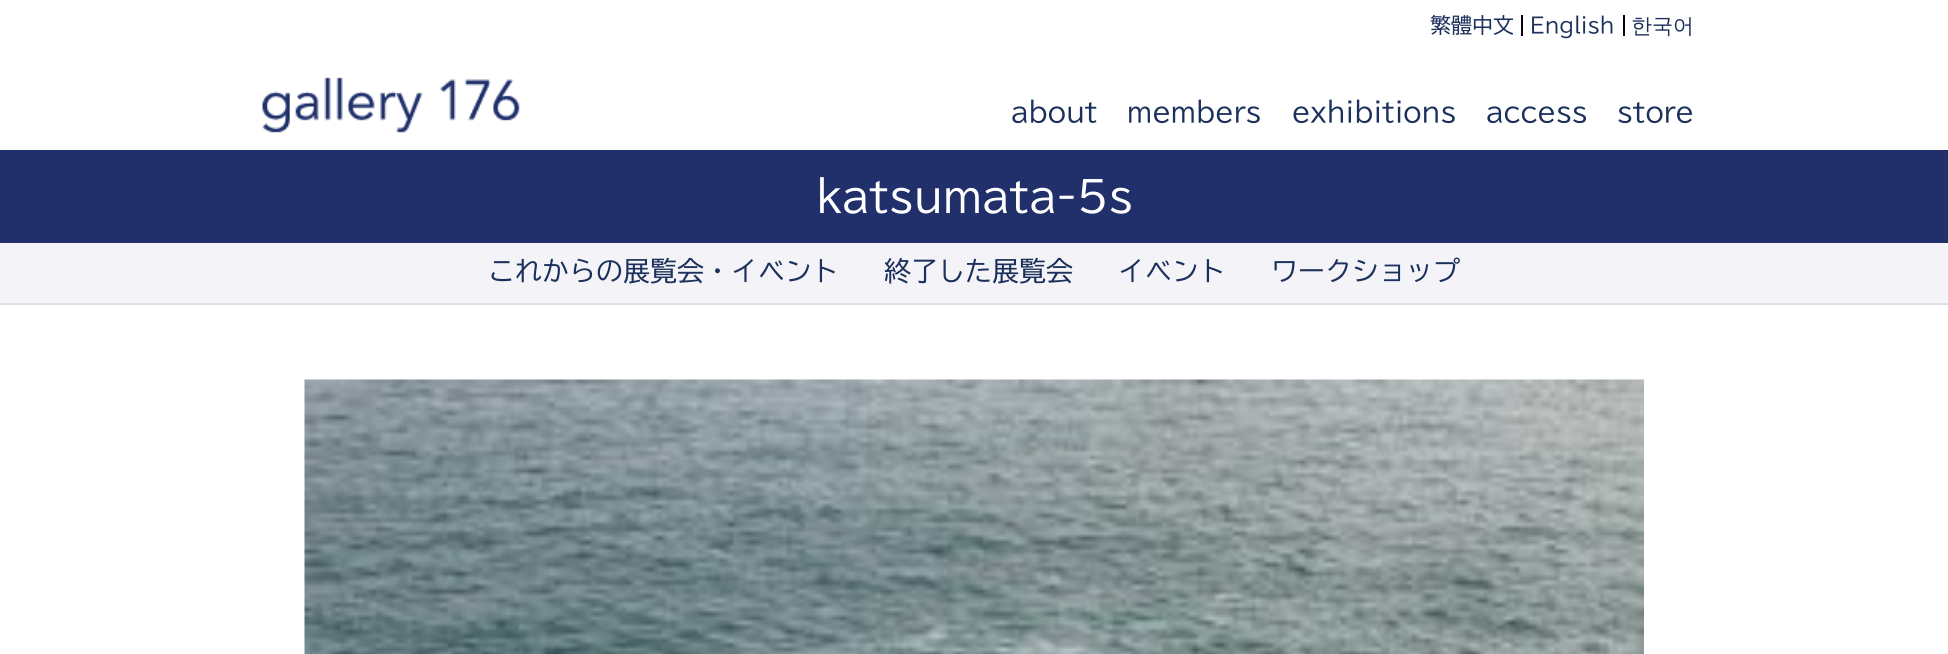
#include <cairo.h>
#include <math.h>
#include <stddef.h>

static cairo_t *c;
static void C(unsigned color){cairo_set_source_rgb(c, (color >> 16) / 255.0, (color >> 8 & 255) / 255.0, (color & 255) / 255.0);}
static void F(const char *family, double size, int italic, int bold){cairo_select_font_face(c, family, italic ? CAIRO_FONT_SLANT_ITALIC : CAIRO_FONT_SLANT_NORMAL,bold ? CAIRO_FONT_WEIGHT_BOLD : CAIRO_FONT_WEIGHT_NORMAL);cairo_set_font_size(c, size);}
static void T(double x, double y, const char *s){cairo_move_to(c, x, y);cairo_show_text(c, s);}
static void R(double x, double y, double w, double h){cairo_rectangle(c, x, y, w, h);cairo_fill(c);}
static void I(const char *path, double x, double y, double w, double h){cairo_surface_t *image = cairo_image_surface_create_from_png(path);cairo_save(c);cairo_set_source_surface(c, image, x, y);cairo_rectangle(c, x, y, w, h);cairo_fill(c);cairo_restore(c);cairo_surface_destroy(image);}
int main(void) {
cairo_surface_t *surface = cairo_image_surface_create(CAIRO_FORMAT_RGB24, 1948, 654);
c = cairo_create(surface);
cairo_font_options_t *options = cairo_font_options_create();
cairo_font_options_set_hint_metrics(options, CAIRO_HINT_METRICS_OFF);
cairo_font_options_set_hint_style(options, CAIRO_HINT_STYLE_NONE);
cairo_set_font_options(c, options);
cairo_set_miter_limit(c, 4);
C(0xffffff);
cairo_paint(c);
F("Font",21,0,0);
C(0x1c305c);
T(1430,33,"繁體中文");
C(0x0d0015);
R(1521,15,2,21);
C(0x1c305c);
T(1530,33,"English");
C(0x0d0015);
R(1623,15,2,21);
F("WenQuanYi Zen Hei Medium",21,0,0);
C(0x1c305c);
T(1631,33,"한국어");
I("1.png",262,77,258,56);
F("Font",27,0,0);
T(1011,122,"about");
T(1127,122,"members");
T(1292,122,"exhibitions");
T(1486,122,"access");
T(1617,122,"store");
C(0x212f6a);
R(0,150,1948,93);
F("Font",42,0,0);
C(0xffffff);
T(816,212,"katsumata-5s");
C(0xf3f3f8);
R(0,243,1948,60);
C(0xdfdfeb);
R(0,303,1948,2);
F("Font",27,0,0);
C(0x1c305c);
T(488,281,"これからの展覧会・イベント");
T(884,281,"終了した展覧会");
T(1118,281,"イベント");
T(1271,281,"ワークショップ");
I("2.png",304,379,1340,275);
cairo_surface_write_to_png(surface, "o.png");
cairo_font_options_destroy(options);
cairo_destroy(c);
cairo_surface_destroy(surface);
return 0;
}
